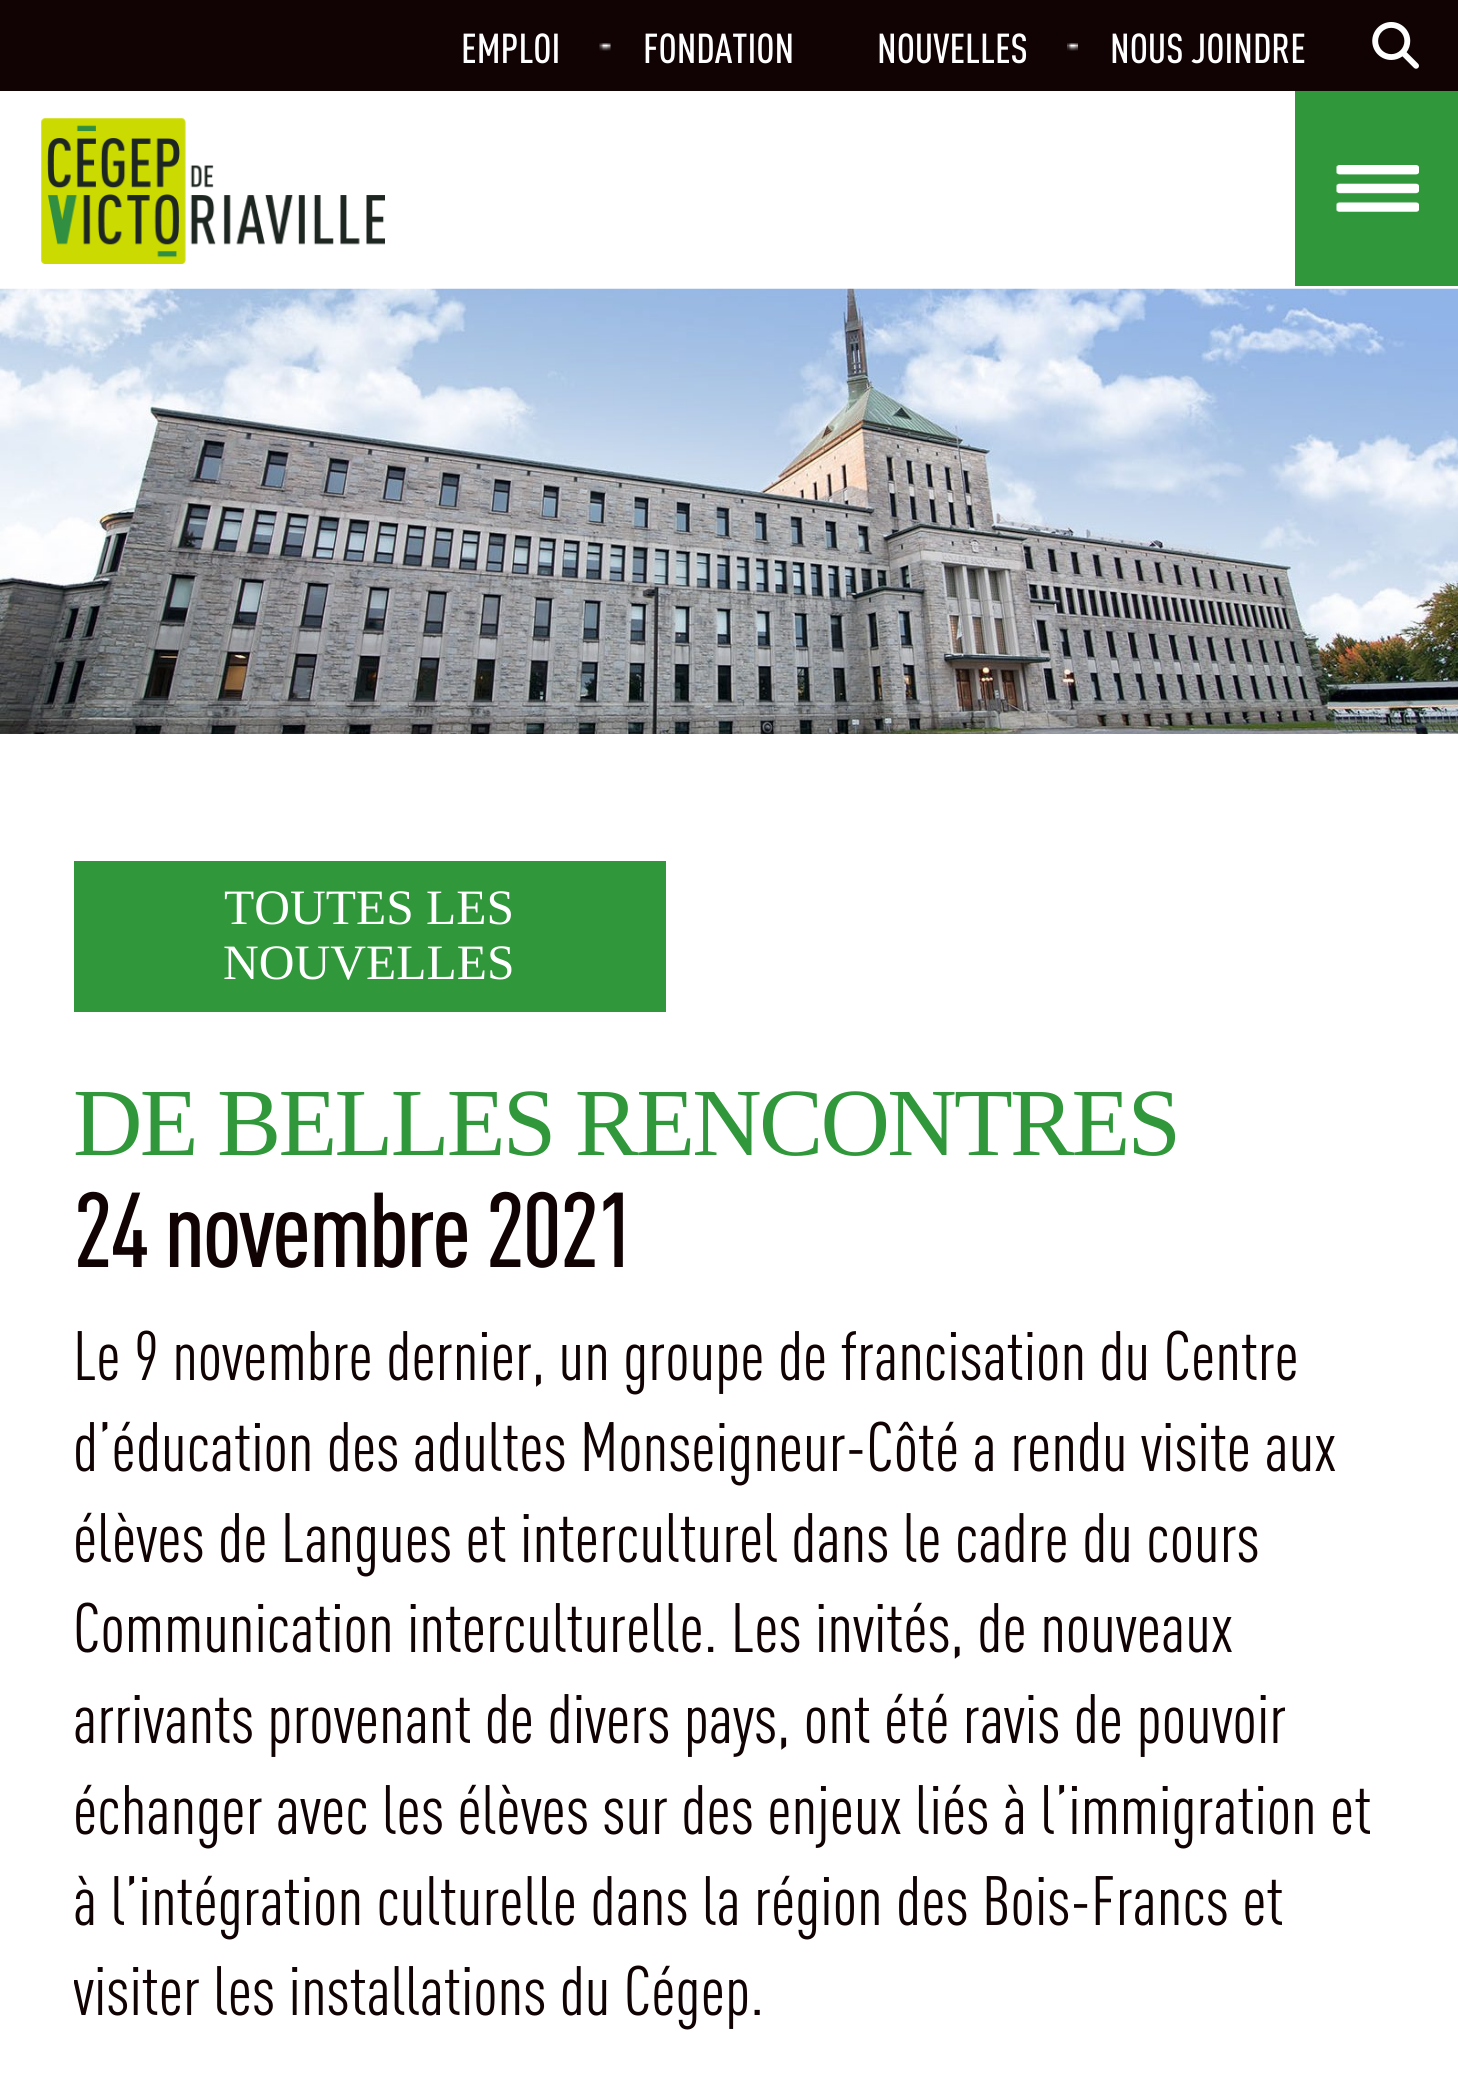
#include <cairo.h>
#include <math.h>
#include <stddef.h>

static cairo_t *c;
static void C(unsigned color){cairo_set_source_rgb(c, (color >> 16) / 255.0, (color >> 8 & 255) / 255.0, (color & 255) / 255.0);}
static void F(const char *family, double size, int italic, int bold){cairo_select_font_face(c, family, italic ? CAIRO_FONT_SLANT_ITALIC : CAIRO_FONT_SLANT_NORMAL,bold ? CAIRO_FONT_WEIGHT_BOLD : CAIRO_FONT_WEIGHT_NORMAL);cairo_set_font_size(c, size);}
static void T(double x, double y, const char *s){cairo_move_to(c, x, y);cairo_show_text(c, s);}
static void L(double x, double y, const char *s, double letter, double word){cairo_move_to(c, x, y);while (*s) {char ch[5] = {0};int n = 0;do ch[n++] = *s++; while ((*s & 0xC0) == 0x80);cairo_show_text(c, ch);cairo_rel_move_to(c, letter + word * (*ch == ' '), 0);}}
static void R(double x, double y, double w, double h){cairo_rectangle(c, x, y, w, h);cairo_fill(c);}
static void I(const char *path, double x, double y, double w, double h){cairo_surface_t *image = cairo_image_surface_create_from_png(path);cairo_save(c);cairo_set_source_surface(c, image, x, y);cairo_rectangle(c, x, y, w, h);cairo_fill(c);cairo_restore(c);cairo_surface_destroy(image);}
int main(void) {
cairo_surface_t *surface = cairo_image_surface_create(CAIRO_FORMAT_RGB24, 1458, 2077);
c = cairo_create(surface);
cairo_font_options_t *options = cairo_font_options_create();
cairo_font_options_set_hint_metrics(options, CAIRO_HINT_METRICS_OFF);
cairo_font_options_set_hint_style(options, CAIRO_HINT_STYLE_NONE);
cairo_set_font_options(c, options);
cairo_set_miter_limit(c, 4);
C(0xffffff);
cairo_paint(c);
C(0x110304);
R(0,0,1458,91);
F("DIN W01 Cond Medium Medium",41.25,0,0);
C(0xffffff);
T(461,63,"EMPLOI");
I("1.png",599,43,12,8);
T(643,63,"FONDATION");
T(877,63,"NOUVELLES");
I("2.png",1067,43,11,8);
T(1110,63,"NOUS JOINDRE");
I("3.png",1372,22,47,47);
I("4.png",41,118,344,146);
C(0x30973a);
R(1295,91,163,195);
I("5.png",1336,165,83,47);
I("6.png",0,288,1458,446);
R(74,861,592,151);
F("Liberation Serif",49.5,0,0);
C(0xffffff);
T(224,924,"TOUTES LES");
T(223,979,"NOUVELLES");
F("Liberation Serif",96.25,0,0);
C(0x30973a);
L(73,1155,"DE BELLES RENCONTRES",-2.75,0);
F("DIN W01 Cond Medium Medium",104.5,0,0);
C(0x110304);
L(73,1267,"24 novembre 2021",-2.75,0);
F("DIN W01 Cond",68.75,0,0);
T(73,1380,"Le 9 novembre dernier, un groupe de francisation du Centre");
T(73,1471,"d’éducation des adultes Monseigneur-Côté a rendu visite aux");
T(73,1562,"élèves de Langues et interculturel dans le cadre du cours");
T(73,1652,"Communication interculturelle. Les invités, de nouveaux");
T(73,1743,"arrivants provenant de divers pays, ont été ravis de pouvoir");
T(73,1834,"échanger avec les élèves sur des enjeux liés à l’immigration et");
T(73,1925,"à l’intégration culturelle dans la région des Bois-Francs et");
cairo_save(c);
cairo_rectangle(c,74,1309,1312,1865);
cairo_clip(c);
T(73,2015,"visiter les installations du Cégep.");
cairo_restore(c);
cairo_surface_write_to_png(surface, "o.png");
cairo_font_options_destroy(options);
cairo_destroy(c);
cairo_surface_destroy(surface);
return 0;
}
